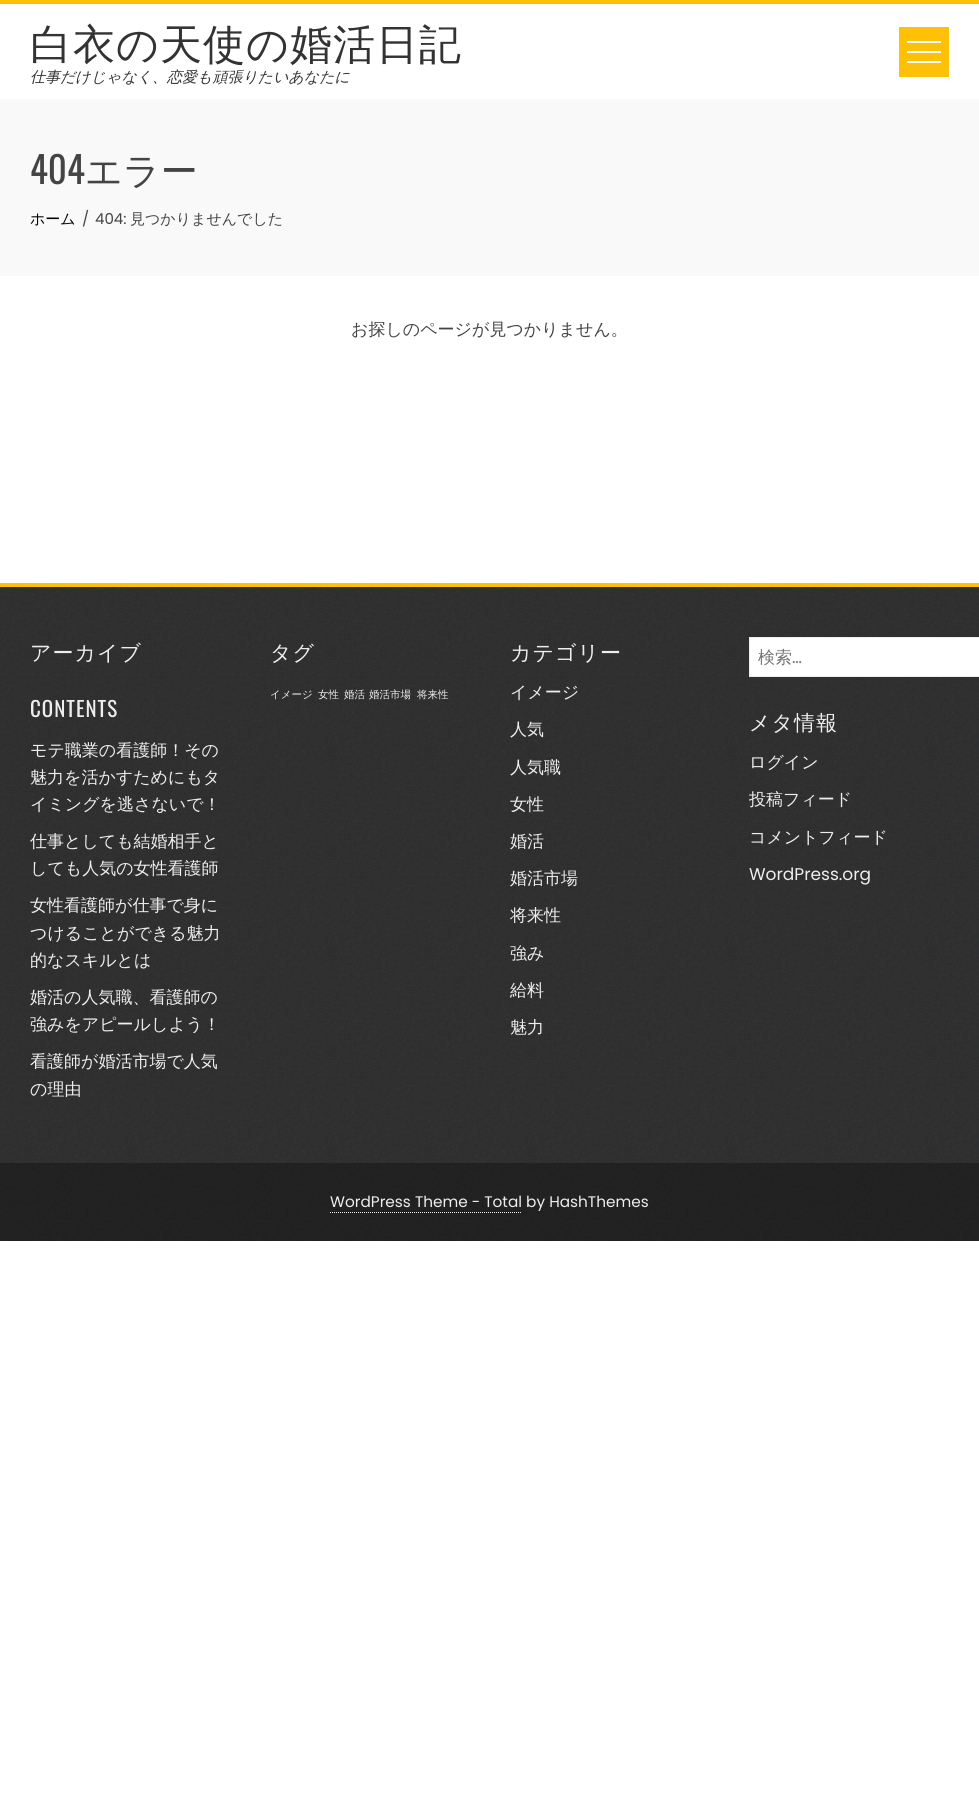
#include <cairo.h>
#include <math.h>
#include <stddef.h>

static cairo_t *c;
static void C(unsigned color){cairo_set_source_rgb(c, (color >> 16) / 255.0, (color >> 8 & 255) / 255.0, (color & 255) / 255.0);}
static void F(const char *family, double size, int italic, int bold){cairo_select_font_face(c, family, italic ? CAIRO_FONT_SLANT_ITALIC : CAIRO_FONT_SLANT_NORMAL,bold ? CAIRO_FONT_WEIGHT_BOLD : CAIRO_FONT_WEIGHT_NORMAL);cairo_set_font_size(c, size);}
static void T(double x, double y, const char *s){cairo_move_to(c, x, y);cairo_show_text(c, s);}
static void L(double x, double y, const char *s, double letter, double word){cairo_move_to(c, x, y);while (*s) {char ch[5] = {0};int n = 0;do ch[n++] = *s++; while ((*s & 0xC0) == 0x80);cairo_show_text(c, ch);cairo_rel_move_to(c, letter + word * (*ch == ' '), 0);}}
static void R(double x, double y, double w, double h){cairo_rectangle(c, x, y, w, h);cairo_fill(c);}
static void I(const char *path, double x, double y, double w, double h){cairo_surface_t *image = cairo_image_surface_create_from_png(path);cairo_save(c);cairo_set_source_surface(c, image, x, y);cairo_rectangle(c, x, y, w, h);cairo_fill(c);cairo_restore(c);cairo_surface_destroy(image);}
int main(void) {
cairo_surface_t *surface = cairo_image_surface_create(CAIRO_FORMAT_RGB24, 979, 1814);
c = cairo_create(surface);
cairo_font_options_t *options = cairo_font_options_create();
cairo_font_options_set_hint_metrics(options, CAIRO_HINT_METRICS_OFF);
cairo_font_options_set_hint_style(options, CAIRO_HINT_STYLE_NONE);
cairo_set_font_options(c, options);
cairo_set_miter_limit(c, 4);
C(0xffffff);
cairo_paint(c);
C(0xffc107);
R(0,0,979,4);
F("WenQuanYi Zen Hei Medium",42,0,0);
C(0x333333);
L(30,59,"白衣の天使の婚活日記",1,0);
F("WenQuanYi Zen Hei Medium",15,1,0);
T(30,82,"仕事だけじゃなく、恋愛も頑張りたいあなたに");
C(0xffc107);
R(899,27,50,50);
C(0xffffff);
R(907,41,34,2);
R(907,61,34,2);
R(907,51,34,2);
C(0xf9f9f9);
R(0,99,979,177);
F("Oswald",37,0,0);
C(0x444444);
T(30,184,"404");
F("WenQuanYi Zen Hei Medium",37,0,0);
T(85,184,"エラー");
F("WenQuanYi Zen Hei Medium",15,0,0);
C(0x000000);
T(30,224,"ホーム");
F("Poppins",15,0,0);
C(0x444444);
T(82,224,"/");
T(95,224,"404:");
F("WenQuanYi Zen Hei Medium",15,0,0);
T(130,224,"見つかりませんでした");
F("WenQuanYi Zen Hei Medium",17,0,0);
T(351,335,"お探しのページが見つかりません。");
I("1.png",0,587,979,654);
C(0xffc107);
R(0,583,979,4);
F("WenQuanYi Zen Hei Medium",21,0,0);
C(0xeeeeee);
L(30,660,"アーカイブ",1,0);
F("Oswald",21,0,0);
L(30,717,"CONTENTS",1,0);
F("WenQuanYi Zen Hei Medium",17,0,0);
T(30,756,"モテ職業の看護師！その");
T(30,783,"魅力を活かすためにもタ");
T(30,810,"イミングを逃さないで！");
T(30,847,"仕事としても結婚相手と");
T(30,874,"しても人気の女性看護師");
T(30,911,"女性看護師が仕事で身に");
T(30,939,"つけることができる魅力");
T(30,966,"的なスキルとは");
T(30,1003,"婚活の人気職、看護師の");
T(30,1030,"強みをアピールしよう！");
T(30,1067,"看護師が婚活市場で人気");
T(30,1095,"の理由");
F("WenQuanYi Zen Hei Medium",21,0,0);
L(270,660,"タグ",1,0);
F("WenQuanYi Zen Hei Medium",10.5,0,0);
T(270,698,"イメージ");
T(318,698,"女性");
T(344,698,"婚活");
T(369,698,"婚活市場");
T(417,698,"将来性");
F("WenQuanYi Zen Hei Medium",21,0,0);
L(510,660,"カテゴリー",1,0);
F("WenQuanYi Zen Hei Medium",17,0,0);
T(510,698,"イメージ");
T(510,735,"人気");
T(510,773,"人気職");
T(510,810,"女性");
T(510,847,"婚活");
T(510,884,"婚活市場");
T(510,921,"将来性");
T(510,959,"強み");
T(510,996,"給料");
T(510,1033,"魅力");
C(0xffffff);
cairo_rectangle(c,749.5,637.5,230,39);
cairo_fill_preserve(c);
C(0xeeeeee);
cairo_set_line_width(c,1);
cairo_stroke(c);
C(0x757575);
T(758,663,"検索");
F("Poppins",17,0,0);
T(792,663,"…");
F("WenQuanYi Zen Hei Medium",21,0,0);
C(0xeeeeee);
L(749,730,"メタ情報",1,0);
F("WenQuanYi Zen Hei Medium",17,0,0);
T(749,768,"ログイン");
T(749,805,"投稿フィード");
T(749,843,"コメントフィード");
F("Poppins",17,0,0);
T(749,880,"WordPress.org");
cairo_set_source_rgba(c,0,0,0,0.3);
R(0,1163,979,78);
F("Poppins",15.3,0,0);
C(0xeeeeee);
T(330,1207,"WordPress Theme - Total by HashThemes");
cairo_new_path(c);
cairo_move_to(c,330,1212.5);
cairo_line_to(c,522,1212.5);
cairo_set_dash(c,(double[]){1,1},2,0);
cairo_stroke(c);
cairo_surface_write_to_png(surface, "o.png");
cairo_font_options_destroy(options);
cairo_destroy(c);
cairo_surface_destroy(surface);
return 0;
}
